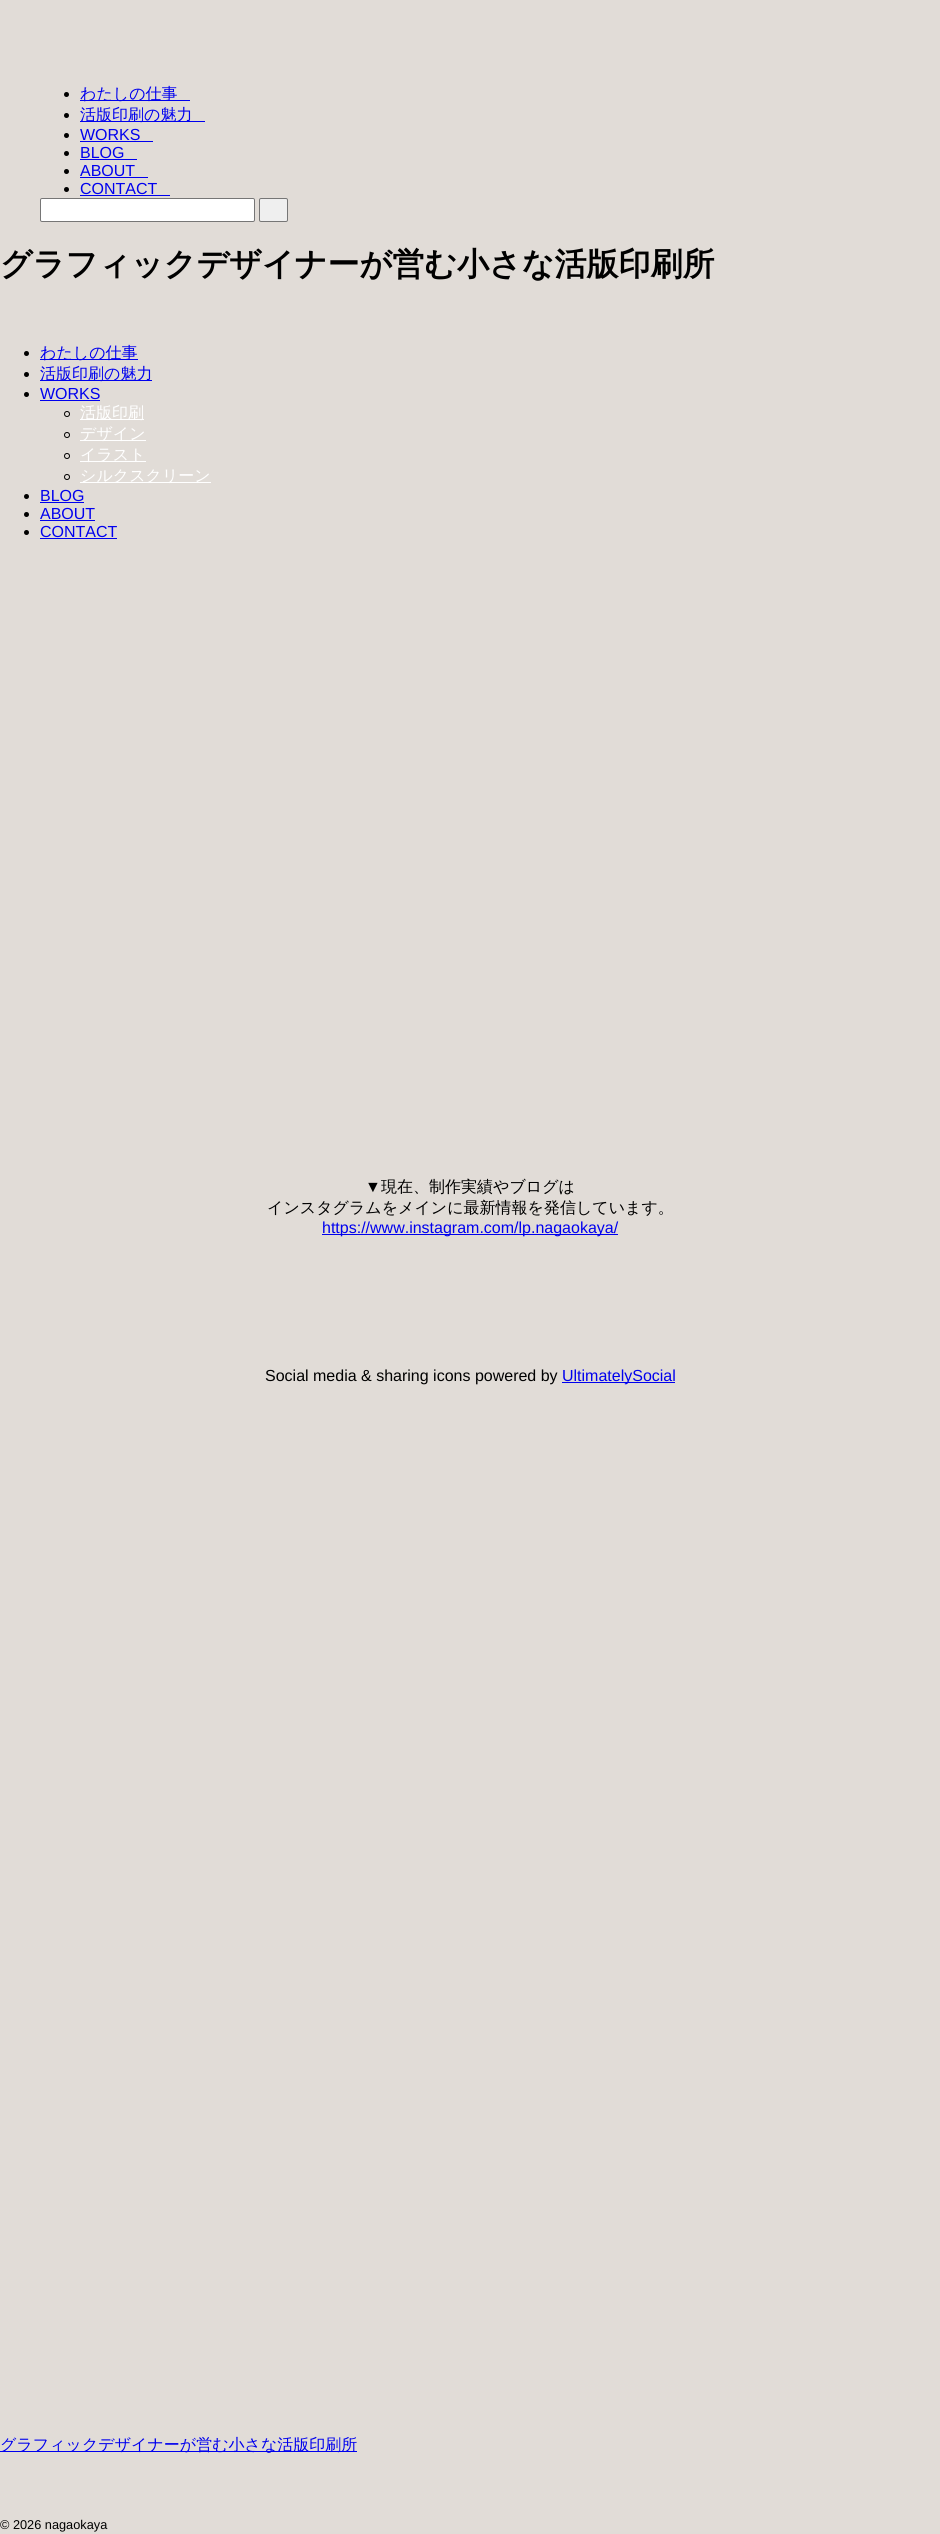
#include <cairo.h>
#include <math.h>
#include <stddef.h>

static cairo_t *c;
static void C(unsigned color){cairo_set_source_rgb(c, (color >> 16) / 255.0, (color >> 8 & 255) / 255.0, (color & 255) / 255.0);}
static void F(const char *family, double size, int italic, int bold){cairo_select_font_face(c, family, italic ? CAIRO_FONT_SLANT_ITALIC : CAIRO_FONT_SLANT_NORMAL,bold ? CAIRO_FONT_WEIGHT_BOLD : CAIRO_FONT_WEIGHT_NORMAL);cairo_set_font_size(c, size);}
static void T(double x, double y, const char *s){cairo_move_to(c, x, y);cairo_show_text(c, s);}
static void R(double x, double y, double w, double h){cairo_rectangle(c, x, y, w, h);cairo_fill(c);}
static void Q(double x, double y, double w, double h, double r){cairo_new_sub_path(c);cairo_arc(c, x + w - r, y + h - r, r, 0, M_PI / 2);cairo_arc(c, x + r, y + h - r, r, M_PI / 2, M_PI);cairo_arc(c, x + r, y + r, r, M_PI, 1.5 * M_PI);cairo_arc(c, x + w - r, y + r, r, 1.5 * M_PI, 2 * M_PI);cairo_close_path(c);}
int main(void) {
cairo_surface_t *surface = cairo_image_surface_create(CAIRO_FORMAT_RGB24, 940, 2534);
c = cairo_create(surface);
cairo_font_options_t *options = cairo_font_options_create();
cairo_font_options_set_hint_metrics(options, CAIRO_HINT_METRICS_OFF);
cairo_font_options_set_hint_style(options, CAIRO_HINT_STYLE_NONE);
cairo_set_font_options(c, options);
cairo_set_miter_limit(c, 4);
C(0xe1dcd7);
cairo_paint(c);
C(0x000000);
cairo_arc(c,66.5,94.5,2.5,0,2 * M_PI);
cairo_fill(c);
C(0x0000ee);
R(80,100,110,1);
F("WenQuanYi Zen Hei Medium",16,0,0);
T(80,99,"わたしの仕事");
C(0x000000);
cairo_new_path(c);
cairo_arc(c,66.5,115.5,2.5,0,2 * M_PI);
cairo_fill(c);
C(0x0000ee);
R(80,121,125,1);
T(80,120,"活版印刷の魅力");
C(0x000000);
cairo_new_path(c);
cairo_arc(c,66.5,135.5,2.5,0,2 * M_PI);
cairo_fill(c);
F("Liberation Sans",16,0,0);
C(0x0000ee);
T(80,140,"WORKS");
R(80,141,73,1);
C(0x000000);
cairo_new_path(c);
cairo_arc(c,66.5,153.5,2.5,0,2 * M_PI);
cairo_fill(c);
C(0x0000ee);
T(80,158,"BLOG");
R(80,159,57,1);
C(0x000000);
cairo_new_path(c);
cairo_arc(c,66.5,171.5,2.5,0,2 * M_PI);
cairo_fill(c);
C(0x0000ee);
T(80,176,"ABOUT");
R(80,177,68,1);
C(0x000000);
cairo_new_path(c);
cairo_arc(c,66.5,189.5,2.5,0,2 * M_PI);
cairo_fill(c);
C(0x0000ee);
T(80,194,"CONTACT");
R(80,195,90,1);
C(0xffffff);
Q(40.5,198.5,214,23,1.5);
cairo_fill_preserve(c);
C(0x767676);
cairo_set_line_width(c,1);
cairo_stroke(c);
C(0xefefef);
Q(259.5,198.5,28,23,1.5);
cairo_fill_preserve(c);
C(0x767676);
cairo_stroke(c);
F("WenQuanYi Zen Hei",32,0,1);
C(0x000000);
T(0,275,"グラフィックデザイナーが営む小さな活版印刷所");
cairo_new_path(c);
cairo_arc(c,26.5,353.5,2.5,0,2 * M_PI);
cairo_fill(c);
C(0x0000ee);
R(40,359,98,1);
F("WenQuanYi Zen Hei Medium",16,0,0);
T(40,358,"わたしの仕事");
C(0x000000);
cairo_new_path(c);
cairo_arc(c,26.5,374.5,2.5,0,2 * M_PI);
cairo_fill(c);
C(0x0000ee);
R(40,380,112,1);
T(40,379,"活版印刷の魅力");
C(0x000000);
cairo_new_path(c);
cairo_arc(c,26.5,394.5,2.5,0,2 * M_PI);
cairo_fill(c);
F("Liberation Sans",16,0,0);
C(0x0000ee);
T(40,399,"WORKS");
R(40,400,60,1);
cairo_new_path(c);
cairo_arc(c,67,414,2.5,0,2 * M_PI);
C(0x000000);
cairo_stroke(c);
C(0xffffff);
R(80,419,64,1);
F("WenQuanYi Zen Hei Medium",16,0,0);
T(80,418,"活版印刷");
cairo_new_path(c);
cairo_arc(c,67,435,2.5,0,2 * M_PI);
C(0x000000);
cairo_stroke(c);
C(0xffffff);
R(80,440,66,1);
T(80,439,"デザイン");
cairo_new_path(c);
cairo_arc(c,67,456,2.5,0,2 * M_PI);
C(0x000000);
cairo_stroke(c);
C(0xffffff);
R(80,461,66,1);
T(80,460,"イラスト");
cairo_new_path(c);
cairo_arc(c,67,477,2.5,0,2 * M_PI);
C(0x000000);
cairo_stroke(c);
C(0xffffff);
R(80,482,131,1);
T(80,481,"シルクスクリーン");
C(0x000000);
cairo_new_path(c);
cairo_arc(c,26.5,496.5,2.5,0,2 * M_PI);
cairo_fill(c);
F("Liberation Sans",16,0,0);
C(0x0000ee);
T(40,501,"BLOG");
R(40,502,44,1);
C(0x000000);
cairo_new_path(c);
cairo_arc(c,26.5,514.5,2.5,0,2 * M_PI);
cairo_fill(c);
C(0x0000ee);
T(40,519,"ABOUT");
R(40,520,55,1);
C(0x000000);
cairo_new_path(c);
cairo_arc(c,26.5,532.5,2.5,0,2 * M_PI);
cairo_fill(c);
C(0x0000ee);
T(40,537,"CONTACT");
R(40,538,77,1);
C(0x000000);
T(365,1192,"▼");
F("WenQuanYi Zen Hei Medium",16,0,0);
T(381,1192,"現在、制作実績やブログは");
T(267,1213,"インスタグラムをメインに最新情報を発信しています。");
C(0x0000ee);
R(322,1234,296,1);
F("Liberation Sans",16,0,0);
T(322,1233,"https://www.instagram.com/lp.nagaokaya/");
R(0,2451,357,1);
F("WenQuanYi Zen Hei Medium",16,0,0);
T(0,2450,"グラフィックデザイナーが営む小さな活版印刷所");
F("Liberation Sans",12.75,0,0);
C(0x000000);
T(0,2529,"© 2026 nagaokaya");
F("Liberation Sans",16,0,0);
T(265,1381,"Social media & sharing icons powered by");
C(0x0000ee);
R(562,1382,113,1);
T(562,1381,"UltimatelySocial");
cairo_surface_write_to_png(surface, "o.png");
cairo_font_options_destroy(options);
cairo_destroy(c);
cairo_surface_destroy(surface);
return 0;
}
